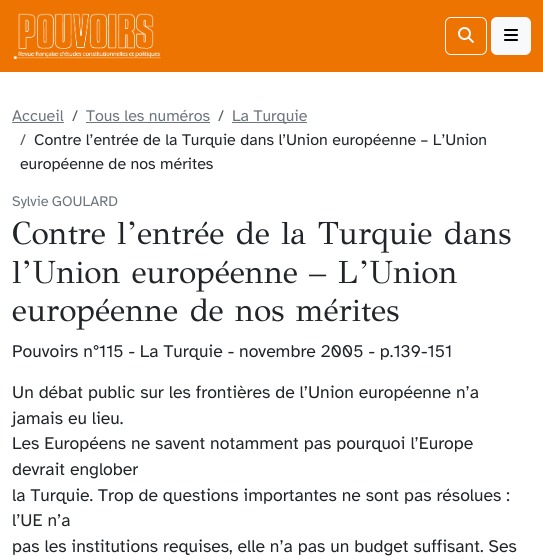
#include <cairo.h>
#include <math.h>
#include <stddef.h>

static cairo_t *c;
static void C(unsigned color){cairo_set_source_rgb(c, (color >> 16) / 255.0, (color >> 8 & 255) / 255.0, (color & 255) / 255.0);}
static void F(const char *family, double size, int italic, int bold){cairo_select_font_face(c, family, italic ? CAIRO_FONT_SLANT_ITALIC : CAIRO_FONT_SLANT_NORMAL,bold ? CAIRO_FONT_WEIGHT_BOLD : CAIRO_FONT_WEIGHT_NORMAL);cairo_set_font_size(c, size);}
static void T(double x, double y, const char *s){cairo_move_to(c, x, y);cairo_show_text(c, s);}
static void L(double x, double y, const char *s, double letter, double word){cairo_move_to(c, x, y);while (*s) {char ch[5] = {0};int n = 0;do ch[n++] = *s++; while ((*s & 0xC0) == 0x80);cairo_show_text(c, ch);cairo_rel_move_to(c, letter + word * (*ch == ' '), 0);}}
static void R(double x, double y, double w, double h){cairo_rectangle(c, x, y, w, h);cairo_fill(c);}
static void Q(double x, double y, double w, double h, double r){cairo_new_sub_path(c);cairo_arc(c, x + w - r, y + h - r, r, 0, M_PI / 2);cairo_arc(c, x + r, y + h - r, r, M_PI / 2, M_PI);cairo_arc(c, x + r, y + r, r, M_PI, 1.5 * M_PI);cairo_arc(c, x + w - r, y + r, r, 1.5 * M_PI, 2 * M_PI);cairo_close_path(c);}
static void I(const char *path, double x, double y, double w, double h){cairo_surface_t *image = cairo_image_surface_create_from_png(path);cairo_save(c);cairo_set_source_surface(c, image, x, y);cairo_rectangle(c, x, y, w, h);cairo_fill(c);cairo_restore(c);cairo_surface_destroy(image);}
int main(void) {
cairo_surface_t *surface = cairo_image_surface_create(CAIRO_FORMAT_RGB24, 543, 560);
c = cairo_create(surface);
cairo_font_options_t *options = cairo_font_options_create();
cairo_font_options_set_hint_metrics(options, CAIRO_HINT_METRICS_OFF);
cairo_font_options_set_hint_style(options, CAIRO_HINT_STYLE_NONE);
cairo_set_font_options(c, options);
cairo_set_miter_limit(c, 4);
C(0xffffff);
cairo_paint(c);
C(0xed7401);
R(0,0,543,72);
I("1.png",13,13,148,46);
Q(445.5,17.5,41,37,5.5);
C(0xf8f9fa);
cairo_set_line_width(c,1);
cairo_stroke(c);
I("2.png",458,27,16,16);
Q(491.5,17.5,39,37,5.5);
cairo_fill_preserve(c);
cairo_stroke(c);
I("3.png",504,29,14,12);
F("Atkinson Hyperlegible",16,0,0);
C(0x6c757d);
T(12,121,"Accueil");
R(12,122,52,1);
C(0x595c5f);
T(72,121,"/");
C(0x6c757d);
T(86,121,"Tous les numéros");
R(86,122,124,1);
C(0x595c5f);
T(218,121,"/");
C(0x6c757d);
R(232,122,75,1);
T(232,121,"La Turquie");
C(0x595c5f);
T(20,145,"/");
C(0x212529);
T(34,145,"Contre l’entrée de la Turquie dans l’Union européenne – L’Union");
T(20,169,"européenne de nos mérites");
F("Atkinson Hyperlegible",14.5,0,0);
C(0x6c757d);
L(12,206,"Sylvie GOULARD",0,-1);
F("GFS Didot",32,0,0);
C(0x212529);
T(12,244,"Contre l’entrée de la Turquie dans");
T(12,283,"l’Union européenne – L’Union");
T(12,321,"européenne de nos mérites");
F("Atkinson Hyperlegible",17.6,0,0);
T(12,357,"Pouvoirs n°115 - La Turquie - novembre 2005 - p.139-151");
T(12,398,"Un débat public sur les frontières de l’Union européenne n’a");
T(12,424,"jamais eu lieu.");
T(12,449,"Les Européens ne savent notamment pas pourquoi l’Europe");
T(12,475,"devrait englober");
T(12,501,"la Turquie. Trop de questions importantes ne sont pas résolues :");
T(12,526,"l’UE n’a");
T(12,552,"pas les institutions requises, elle n’a pas un budget suffisant. Ses");
cairo_surface_write_to_png(surface, "o.png");
cairo_font_options_destroy(options);
cairo_destroy(c);
cairo_surface_destroy(surface);
return 0;
}
